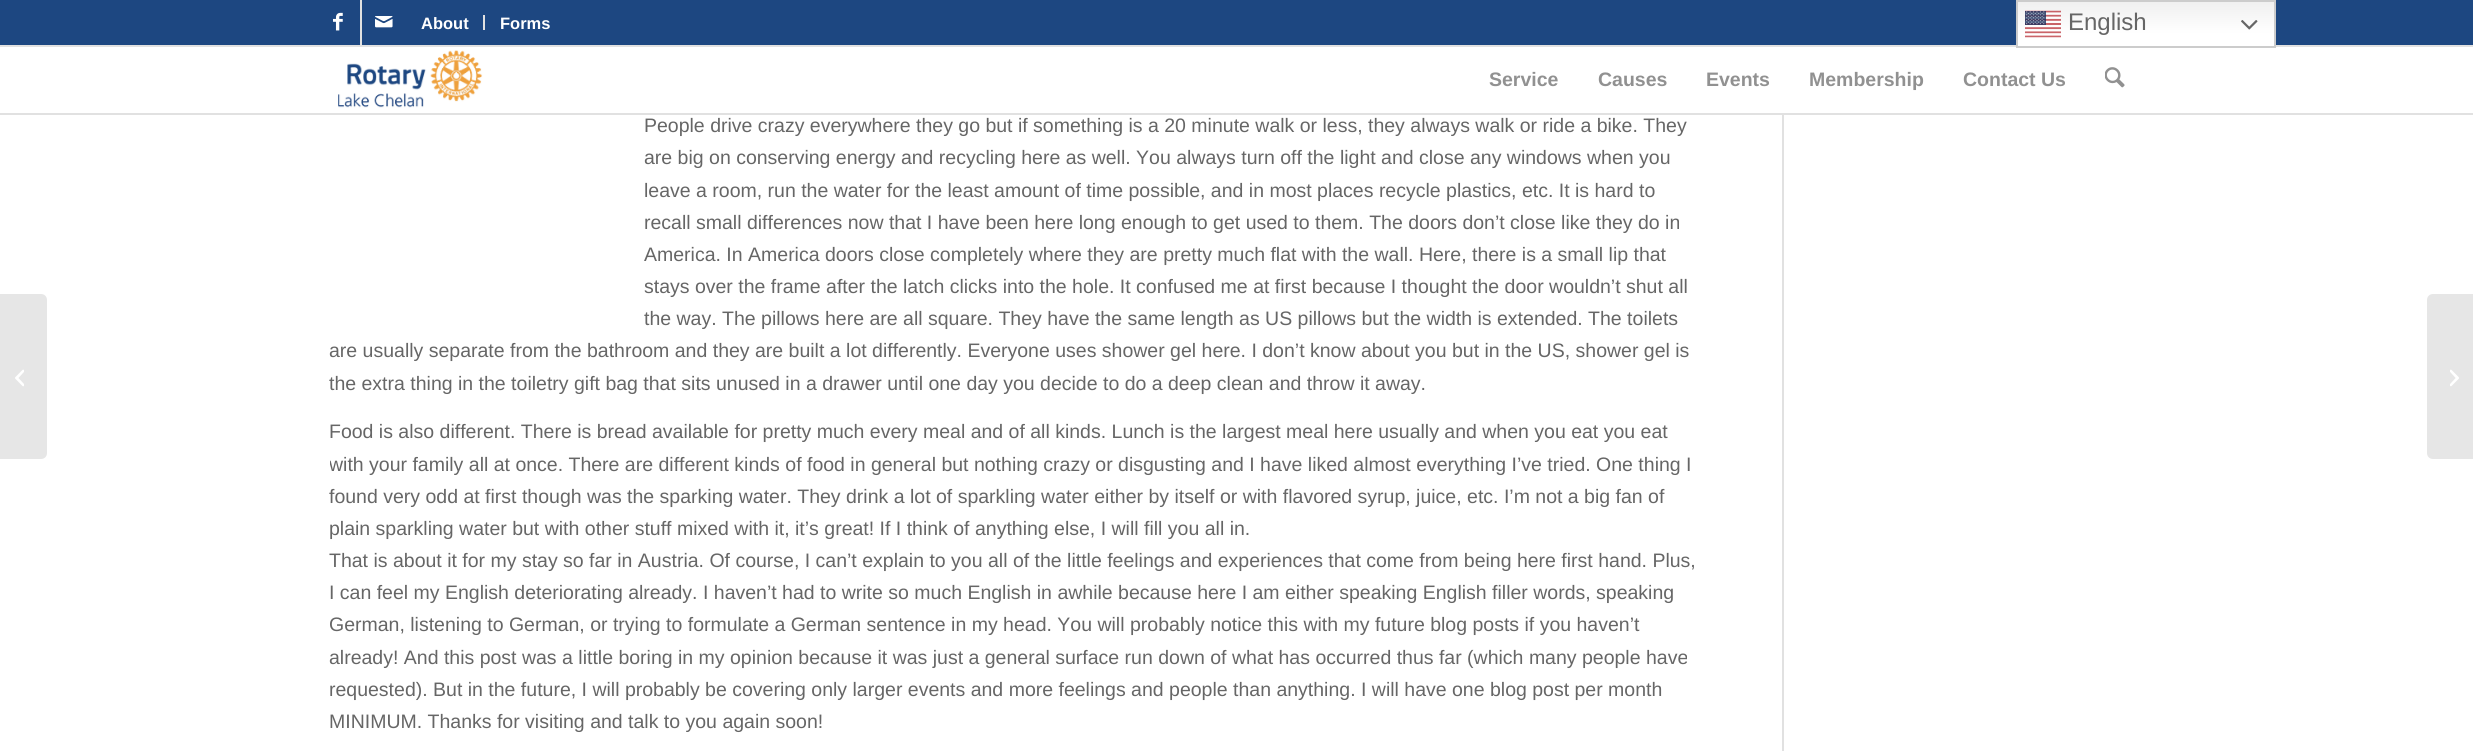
#include <cairo.h>
#include <math.h>
#include <stddef.h>

static cairo_t *c;
static void C(unsigned color){cairo_set_source_rgb(c, (color >> 16) / 255.0, (color >> 8 & 255) / 255.0, (color & 255) / 255.0);}
static void F(const char *family, double size, int italic, int bold){cairo_select_font_face(c, family, italic ? CAIRO_FONT_SLANT_ITALIC : CAIRO_FONT_SLANT_NORMAL,bold ? CAIRO_FONT_WEIGHT_BOLD : CAIRO_FONT_WEIGHT_NORMAL);cairo_set_font_size(c, size);}
static void T(double x, double y, const char *s){cairo_move_to(c, x, y);cairo_show_text(c, s);}
static void R(double x, double y, double w, double h){cairo_rectangle(c, x, y, w, h);cairo_fill(c);}
static void I(const char *path, double x, double y, double w, double h){cairo_surface_t *image = cairo_image_surface_create_from_png(path);cairo_save(c);cairo_set_source_surface(c, image, x, y);cairo_rectangle(c, x, y, w, h);cairo_fill(c);cairo_restore(c);cairo_surface_destroy(image);}
int main(void) {
cairo_surface_t *surface = cairo_image_surface_create(CAIRO_FORMAT_RGB24, 2473, 751);
c = cairo_create(surface);
cairo_font_options_t *options = cairo_font_options_create();
cairo_font_options_set_hint_metrics(options, CAIRO_HINT_METRICS_OFF);
cairo_font_options_set_hint_style(options, CAIRO_HINT_STYLE_NONE);
cairo_set_font_options(c, options);
cairo_set_miter_limit(c, 4);
cairo_pattern_t *gradient;
C(0xffffff);
cairo_paint(c);
C(0x1d4781);
R(0,0,2473,45);
C(0xe1e1e1);
R(0,45,2473,2);
R(360,0,2,45);
I("1.png",333,12,10,19);
I("2.png",375,16,18,12);
R(483,15,2,15);
F("Liberation Sans",16.5,0,1);
C(0xffffff);
T(421,29,"About");
T(500,29,"Forms");
C(0xe1e1e1);
R(0,113,2473,2);
I("3.png",330,47,159,61);
F("Liberation Sans",19.5,0,1);
C(0x919191);
T(1489,86,"Service");
T(1598,86,"Causes");
T(1706,86,"Events");
T(1809,86,"Membership");
T(1963,86,"Contact Us");
I("4.png",2105,67,20,21);
C(0xe6e6e6);
cairo_new_path(c);
cairo_move_to(c,0,294);
cairo_line_to(c,41,294);
cairo_curve_to(c,44.5,294,47,296.5,47,300);
cairo_line_to(c,47,453);
cairo_curve_to(c,47,456.5,44.5,459,41,459);
cairo_line_to(c,0,459);
cairo_close_path(c);
cairo_fill(c);
I("5.png",15,369,9,18);
C(0xe1e1e1);
R(1782,115,2,636);
F("Liberation Sans",19.5,0,0);
C(0x666666);
T(644,132,"People drive crazy everywhere they go but if something is a 20 minute walk or less, they always walk or ride a bike. They");
T(644,164,"are big on conserving energy and recycling here as well. You always turn off the light and close any windows when you");
T(644,197,"leave a room, run the water for the least amount of time possible, and in most places recycle plastics, etc. It is hard to");
T(644,229,"recall small differences now that I have been here long enough to get used to them. The doors don’t close like they do in");
T(644,261,"America. In America doors close completely where they are pretty much flat with the wall. Here, there is a small lip that");
T(644,293,"stays over the frame after the latch clicks into the hole. It confused me at first because I thought the door wouldn’t shut all");
T(644,325,"the way. The pillows here are all square. They have the same length as US pillows but the width is extended. The toilets");
T(329,357,"are usually separate from the bathroom and they are built a lot differently. Everyone uses shower gel here. I don’t know about you but in the US, shower gel is");
T(329,390,"the extra thing in the toiletry gift bag that sits unused in a drawer until one day you decide to do a deep clean and throw it away.");
T(329,438,"Food is also different. There is bread available for pretty much every meal and of all kinds. Lunch is the largest meal here usually and when you eat you eat");
cairo_save(c);
cairo_rectangle(c,330,0,1452,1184);
cairo_clip(c);
T(329,471,"with your family all at once. There are different kinds of food in general but nothing crazy or disgusting and I have liked almost everything I’ve tried. One thing I");
cairo_restore(c);
T(329,503,"found very odd at first though was the sparking water. They drink a lot of sparkling water either by itself or with flavored syrup, juice, etc. I’m not a big fan of");
T(329,535,"plain sparkling water but with other stuff mixed with it, it’s great! If I think of anything else, I will fill you all in.");
T(329,567,"That is about it for my stay so far in Austria. Of course, I can’t explain to you all of the little feelings and experiences that come from being here first hand. Plus,");
T(329,599,"I can feel my English deteriorating already. I haven’t had to write so much English in awhile because here I am either speaking English filler words, speaking");
T(329,631,"German, listening to German, or trying to formulate a German sentence in my head. You will probably notice this with my future blog posts if you haven’t");
T(329,664,"already! And this post was a little boring in my opinion because it was just a general surface run down of what has occurred thus far (which many people have");
T(329,696,"requested). But in the future, I will probably be covering only larger events and more feelings and people than anything. I will have one blog post per month");
T(329,728,"MINIMUM. Thanks for visiting and talk to you again soon!");
C(0xe6e6e6);
cairo_new_path(c);
cairo_move_to(c,2433,294);
cairo_line_to(c,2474,294);
cairo_line_to(c,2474,459);
cairo_line_to(c,2433,459);
cairo_curve_to(c,2429.5,459,2427,456.5,2427,453);
cairo_line_to(c,2427,300);
cairo_curve_to(c,2427,296.5,2429.5,294,2433,294);
cairo_close_path(c);
cairo_fill(c);
I("6.png",2450,369,9,18);
gradient = cairo_pattern_create_linear(2146,0,2146,48);
cairo_pattern_add_color_stop_rgba(gradient,0,0.937,0.937,0.937,1);
cairo_pattern_add_color_stop_rgba(gradient,.7,1,1,1,1);
cairo_set_source(c,gradient);
cairo_pattern_destroy(gradient);
R(2018,2,256,44);
cairo_rectangle(c,2017,1,258,46);
C(0xcccccc);
cairo_stroke(c);
I("7.png",2025,10,36,28);
F("Liberation Sans",24,0,0);
C(0x666666);
T(2068,30,"English");
I("8.png",2241,20,17,10);
cairo_surface_write_to_png(surface, "o.png");
cairo_font_options_destroy(options);
cairo_destroy(c);
cairo_surface_destroy(surface);
return 0;
}
